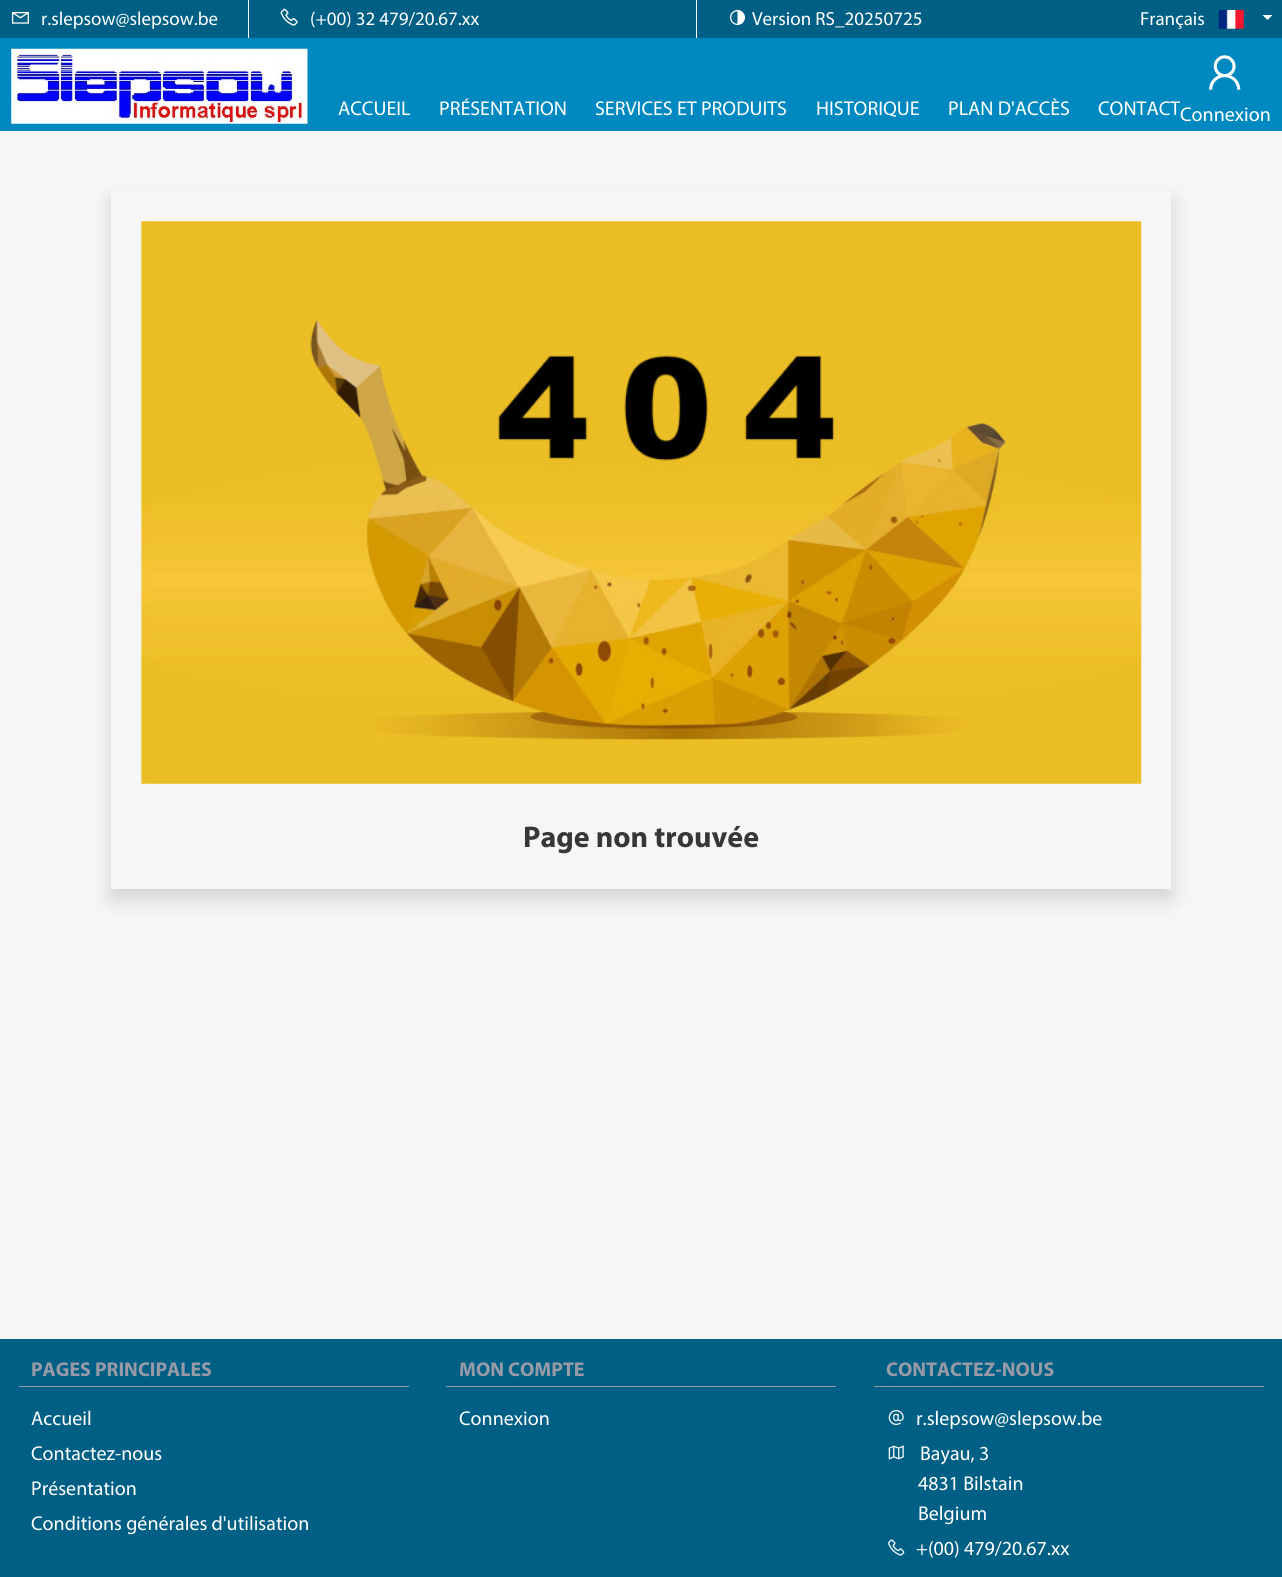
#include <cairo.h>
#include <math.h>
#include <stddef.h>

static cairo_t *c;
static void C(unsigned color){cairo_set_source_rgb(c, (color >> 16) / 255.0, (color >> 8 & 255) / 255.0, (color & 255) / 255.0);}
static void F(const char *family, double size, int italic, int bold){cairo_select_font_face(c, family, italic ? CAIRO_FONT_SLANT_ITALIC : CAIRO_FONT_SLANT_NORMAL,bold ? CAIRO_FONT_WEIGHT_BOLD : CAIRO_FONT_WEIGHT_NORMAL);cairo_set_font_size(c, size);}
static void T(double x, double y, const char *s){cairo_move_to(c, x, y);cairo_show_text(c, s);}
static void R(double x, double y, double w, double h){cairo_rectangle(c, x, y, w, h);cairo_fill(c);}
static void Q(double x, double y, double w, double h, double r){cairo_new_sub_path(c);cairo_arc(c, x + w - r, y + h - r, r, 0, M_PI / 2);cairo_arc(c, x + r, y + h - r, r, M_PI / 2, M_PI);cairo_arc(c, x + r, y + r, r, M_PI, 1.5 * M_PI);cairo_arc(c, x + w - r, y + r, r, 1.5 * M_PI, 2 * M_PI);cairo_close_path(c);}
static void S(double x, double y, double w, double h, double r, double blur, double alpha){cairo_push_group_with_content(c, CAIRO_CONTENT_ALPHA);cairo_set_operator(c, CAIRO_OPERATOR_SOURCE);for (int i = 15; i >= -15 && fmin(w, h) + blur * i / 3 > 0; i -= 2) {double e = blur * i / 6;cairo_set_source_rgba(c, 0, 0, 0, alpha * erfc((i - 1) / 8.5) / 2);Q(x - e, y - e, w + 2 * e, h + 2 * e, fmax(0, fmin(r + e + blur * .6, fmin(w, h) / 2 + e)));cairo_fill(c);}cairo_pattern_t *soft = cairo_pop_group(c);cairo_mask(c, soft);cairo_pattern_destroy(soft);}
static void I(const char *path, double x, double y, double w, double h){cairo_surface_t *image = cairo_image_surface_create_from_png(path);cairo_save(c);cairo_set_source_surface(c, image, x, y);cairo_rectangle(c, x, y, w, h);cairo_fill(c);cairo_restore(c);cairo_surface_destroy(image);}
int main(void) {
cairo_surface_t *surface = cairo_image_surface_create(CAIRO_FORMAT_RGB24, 1282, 1577);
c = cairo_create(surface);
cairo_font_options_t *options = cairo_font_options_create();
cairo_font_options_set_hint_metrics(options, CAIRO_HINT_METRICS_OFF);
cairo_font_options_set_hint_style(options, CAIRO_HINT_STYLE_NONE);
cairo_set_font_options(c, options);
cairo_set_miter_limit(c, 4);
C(0xf6f6f6);
cairo_paint(c);
C(0x005f85);
R(0,0,1282,38);
I("1.png",11,11,18,13);
F("Myriad",19,0,0);
C(0xffffff);
T(41,25,"r.slepsow@slepsow.be");
C(0xf8f9fa);
R(248,0,1,38);
I("2.png",280,8,18,18);
C(0xffffff);
T(310,25,"(+00) 32 479/20.67.xx");
C(0xf8f9fa);
R(696,0,1,38);
I("3.png",730,10,15,15);
C(0xffffff);
T(752,25,"Version RS_20250725");
T(1140,25,"Français");
I("4.png",1218,10,26,19);
cairo_new_path(c);
cairo_move_to(c,1262.5,15);
cairo_line_to(c,1272.5,15);
cairo_line_to(c,1267.5,20);
cairo_close_path(c);
cairo_fill(c);
C(0x0089c0);
R(0,38,1282,93);
I("5.png",11,48,297,76);
F("Myriad",20,0,0);
C(0xffffff);
T(338,115,"ACCUEIL");
T(439,115,"PRÉSENTATION");
T(595,115,"SERVICES ET PRODUITS");
T(816,115,"HISTORIQUE");
T(948,115,"PLAN D'ACCÈS");
T(1098,115,"CONTACT");
I("6.png",1209,55,32,35);
T(1180,121,"Connexion");
cairo_save(c);
cairo_set_fill_rule(c,CAIRO_FILL_RULE_EVEN_ODD);
cairo_new_path(c);
cairo_move_to(c,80,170);
cairo_line_to(c,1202,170);
cairo_line_to(c,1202,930);
cairo_line_to(c,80,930);
cairo_close_path(c);
cairo_move_to(c,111,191);
cairo_line_to(c,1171,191);
cairo_line_to(c,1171,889);
cairo_line_to(c,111,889);
cairo_close_path(c);
cairo_clip(c);
C(0x000000);
S(111,201,1060,698,0,10,.15);
cairo_restore(c);
I("7.png",141,221,1001,563);
F("Myriad",30,0,1);
C(0x383737);
T(523,847,"Page non trouvée");
C(0x005f85);
R(0,1339,1282,238);
C(0x999aa7);
R(19,1386,390,1);
F("Myriad",20,0,1);
T(31,1376,"PAGES PRINCIPALES");
F("Myriad",20,0,0);
C(0xffffff);
T(31,1425,"Accueil");
T(31,1460,"Contactez-nous");
T(31,1495,"Présentation");
T(31,1530,"Conditions générales d'utilisation");
C(0x999aa7);
R(446,1386,390,1);
F("Myriad",20,0,1);
T(459,1376,"MON COMPTE");
F("Myriad",20,0,0);
C(0xffffff);
T(459,1425,"Connexion");
C(0x999aa7);
R(874,1386,390,1);
F("Myriad",20,0,1);
T(886,1376,"CONTACTEZ-NOUS");
I("8.png",888,1410,16,15);
F("Myriad",20,0,0);
C(0xffffff);
T(916,1425,"r.slepsow@slepsow.be");
I("9.png",888,1445,16,15);
T(920,1460,"Bayau, 3");
T(918,1490,"4831 Bilstain");
T(918,1520,"Belgium");
I("10.png",888,1539,17,17);
T(916,1555,"+(00) 479/20.67.xx");
cairo_surface_write_to_png(surface, "o.png");
cairo_font_options_destroy(options);
cairo_destroy(c);
cairo_surface_destroy(surface);
return 0;
}
